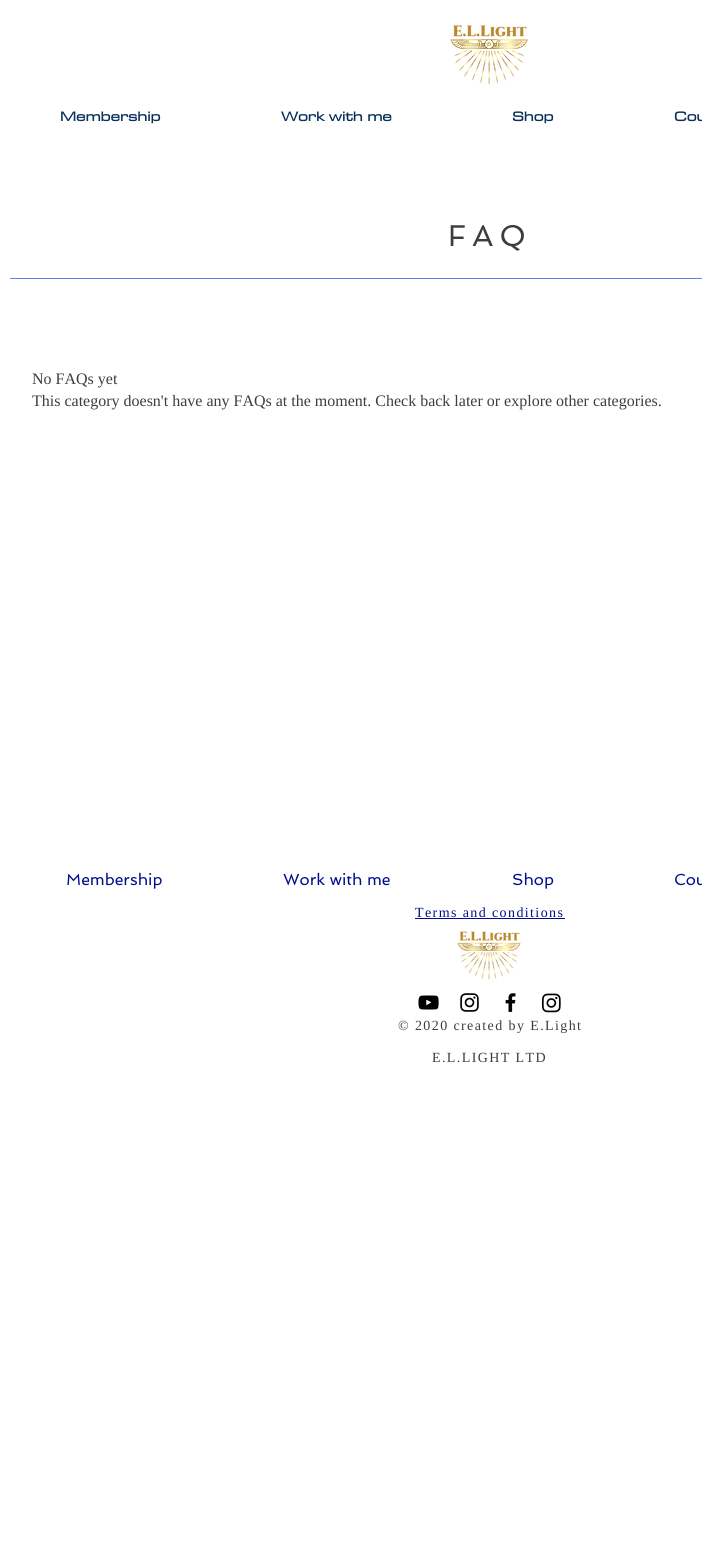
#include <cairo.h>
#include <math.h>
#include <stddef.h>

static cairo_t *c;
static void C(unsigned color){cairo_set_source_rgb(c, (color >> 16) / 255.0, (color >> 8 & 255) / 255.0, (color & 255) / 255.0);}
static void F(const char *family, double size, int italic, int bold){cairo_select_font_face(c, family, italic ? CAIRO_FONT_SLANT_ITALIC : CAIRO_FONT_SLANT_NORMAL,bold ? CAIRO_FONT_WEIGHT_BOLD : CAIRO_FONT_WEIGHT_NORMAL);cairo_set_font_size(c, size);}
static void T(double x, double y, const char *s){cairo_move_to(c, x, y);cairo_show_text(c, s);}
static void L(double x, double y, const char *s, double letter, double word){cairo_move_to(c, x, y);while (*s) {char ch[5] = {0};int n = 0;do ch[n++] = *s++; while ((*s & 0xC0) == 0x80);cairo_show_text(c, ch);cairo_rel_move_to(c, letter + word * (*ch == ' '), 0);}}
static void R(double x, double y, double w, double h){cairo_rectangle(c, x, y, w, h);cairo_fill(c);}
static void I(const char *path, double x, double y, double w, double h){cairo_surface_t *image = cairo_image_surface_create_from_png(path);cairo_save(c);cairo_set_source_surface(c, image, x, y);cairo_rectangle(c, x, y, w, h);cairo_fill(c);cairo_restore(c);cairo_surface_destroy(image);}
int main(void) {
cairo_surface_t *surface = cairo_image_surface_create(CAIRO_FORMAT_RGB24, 702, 1543);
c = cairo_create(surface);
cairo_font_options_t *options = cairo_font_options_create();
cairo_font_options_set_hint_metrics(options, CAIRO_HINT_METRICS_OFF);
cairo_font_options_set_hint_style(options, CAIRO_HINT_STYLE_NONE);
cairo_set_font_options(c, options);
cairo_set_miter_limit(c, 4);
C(0xffffff);
cairo_paint(c);
I("1.png",450,25,78,60);
F("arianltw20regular",16,0,1);
C(0x0b2f5b);
T(60,121,"Membership");
T(281,121,"Work with me");
T(512,121,"Shop");
T(674,121,"Cou");
F("Spinnaker",30,0,0);
C(0x3d3d3d);
L(448,246,"FAQ",6,0);
C(0x5386e4);
R(10,278,692,1);
F("Liberation Serif",16,0,0);
C(0x3d3d3d);
T(32,384,"No FAQs yet");
T(32,406,"This category doesn't have any FAQs at the moment. Check back later or explore other categories.");
F("Spinnaker",16,0,0);
C(0x000e8c);
T(66,885,"Membership");
T(283,885,"Work with me");
T(512,885,"Shop");
T(674,885,"Cou");
F("Liberation Serif",14,0,0);
L(415,917,"Terms and conditions",1.4,0);
R(415,918,150,1);
I("2.png",457,931,64,49);
I("3.png",418,995,21,15);
I("4.png",460,993,19,19);
I("5.png",505,993,11,20);
I("6.png",541,993,20,20);
C(0x3d3d3d);
L(398,1030,"© 2020 created by E.Light",1.4,0);
L(432,1062,"E.L.LIGHT LTD",1.4,0);
cairo_surface_write_to_png(surface, "o.png");
cairo_font_options_destroy(options);
cairo_destroy(c);
cairo_surface_destroy(surface);
return 0;
}
